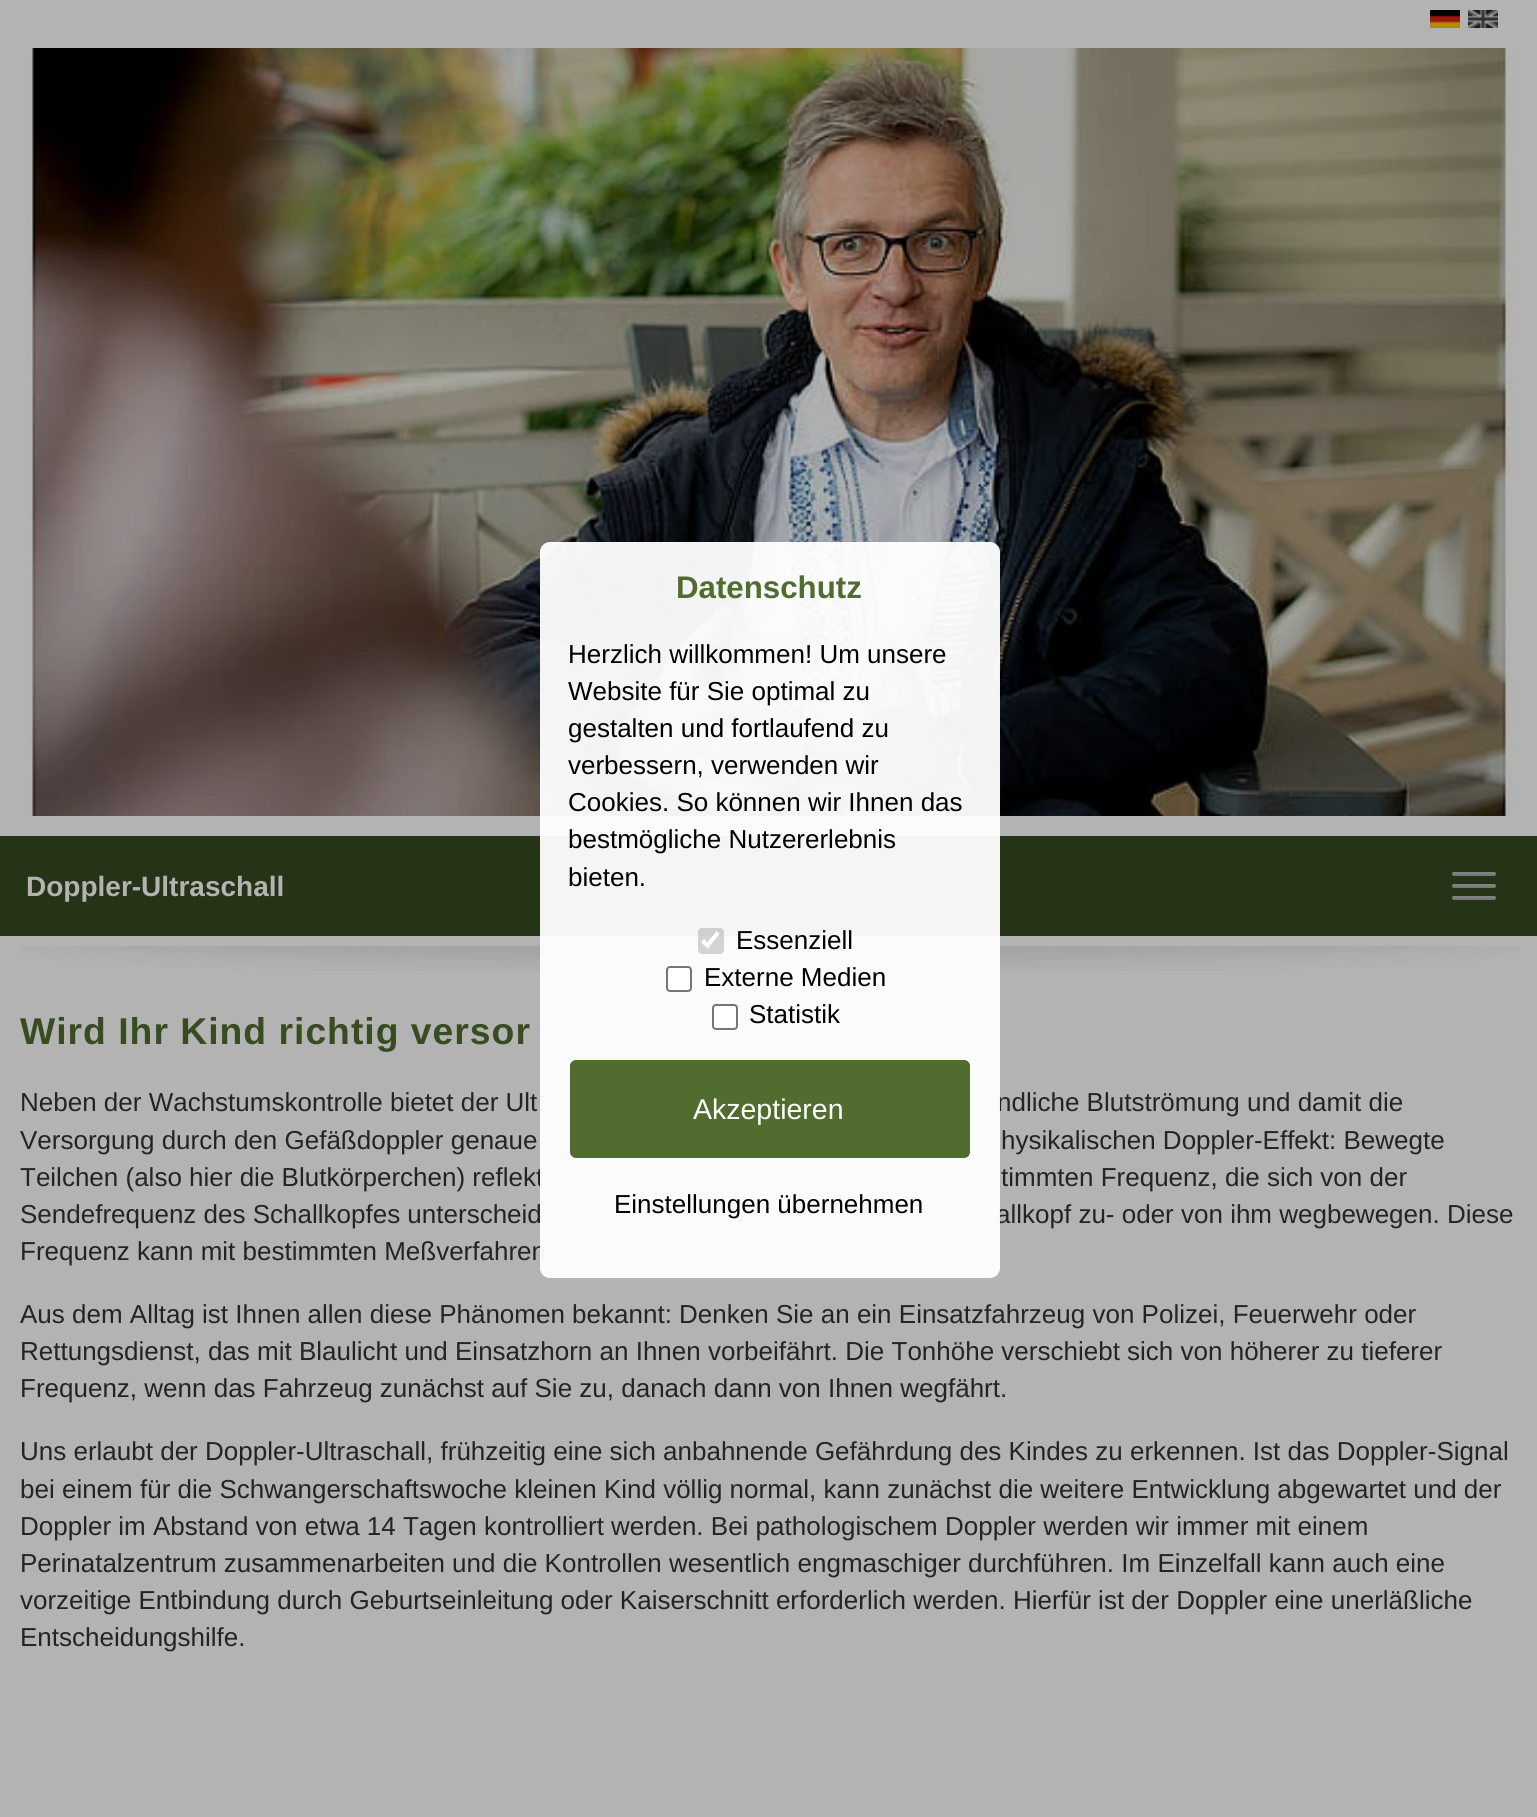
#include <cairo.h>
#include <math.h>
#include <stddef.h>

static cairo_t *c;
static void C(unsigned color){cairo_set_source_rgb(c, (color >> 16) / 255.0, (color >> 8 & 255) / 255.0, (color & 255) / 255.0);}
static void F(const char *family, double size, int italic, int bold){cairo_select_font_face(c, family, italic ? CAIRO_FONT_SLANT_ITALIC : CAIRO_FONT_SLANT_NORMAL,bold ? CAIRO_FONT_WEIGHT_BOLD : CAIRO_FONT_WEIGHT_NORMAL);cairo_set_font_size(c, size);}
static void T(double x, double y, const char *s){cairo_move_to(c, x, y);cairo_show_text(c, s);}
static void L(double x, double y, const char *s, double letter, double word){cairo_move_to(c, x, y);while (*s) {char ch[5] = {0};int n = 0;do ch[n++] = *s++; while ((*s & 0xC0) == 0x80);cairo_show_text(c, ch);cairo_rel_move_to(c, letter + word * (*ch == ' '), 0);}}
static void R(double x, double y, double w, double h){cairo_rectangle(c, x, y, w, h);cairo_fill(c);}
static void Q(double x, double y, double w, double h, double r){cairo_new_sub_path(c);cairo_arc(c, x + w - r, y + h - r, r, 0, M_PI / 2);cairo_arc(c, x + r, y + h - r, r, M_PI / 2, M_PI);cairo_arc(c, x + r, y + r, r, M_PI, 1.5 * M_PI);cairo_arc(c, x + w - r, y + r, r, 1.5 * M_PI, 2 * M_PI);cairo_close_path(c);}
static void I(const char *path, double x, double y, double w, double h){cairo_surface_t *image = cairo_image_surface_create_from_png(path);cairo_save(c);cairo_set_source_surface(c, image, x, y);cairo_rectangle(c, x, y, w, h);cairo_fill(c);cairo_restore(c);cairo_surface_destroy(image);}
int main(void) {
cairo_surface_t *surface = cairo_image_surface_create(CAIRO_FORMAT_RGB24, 1537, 1817);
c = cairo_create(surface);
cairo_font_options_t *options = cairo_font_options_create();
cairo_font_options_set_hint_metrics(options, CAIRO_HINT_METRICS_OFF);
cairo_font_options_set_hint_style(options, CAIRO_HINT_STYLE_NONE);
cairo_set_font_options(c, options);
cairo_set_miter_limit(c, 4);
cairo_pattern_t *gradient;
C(0xb3b3b3);
cairo_paint(c);
I("3.png",25,48,1495,768);
C(0x253416);
R(0,836,1537,100);
I("4.png",19,946,1500,25);
F("Liberation Sans",26,0,0);
C(0x242424);
T(997,1111,"ndliche Blutströmung und damit die");
T(20,1186,"Teilchen (also hier die Blutkörperchen) reflekt");
T(20,1223,"Sendefrequenz des Schallkopfes unterscheid");
T(996,1223,"allkopf zu- oder von ihm wegbewegen. Diese");
T(20,1260,"Frequenz kann mit bestimmten Meßverfahren");
cairo_set_source_rgba(c,1,1,1,0.95);
Q(540,542,460,736,10);
cairo_fill(c);
F("Liberation Sans",31.25,0,1);
C(0x506d2f);
T(676,598,"Datenschutz");
F("Liberation Sans",26,0,0);
C(0x000000);
T(568,663,"Herzlich willkommen! Um unsere");
T(568,700,"Website für Sie optimal zu");
T(568,737,"gestalten und fortlaufend zu");
T(568,774,"verbessern, verwenden wir");
T(568,811,"Cookies. So können wir Ihnen das");
T(568,848,"bestmögliche Nutzererlebnis");
T(568,886,"bieten.");
cairo_set_source_rgba(c,0.463,0.463,0.463,0.3);
Q(698,928,26,26,4);
cairo_fill(c);
cairo_new_path(c);
cairo_move_to(c,702.5,940.5);
cairo_line_to(c,707.5,945.5);
cairo_line_to(c,718,932.5);
C(0xffffff);
cairo_set_line_width(c,4.2);
cairo_stroke(c);
C(0x000000);
T(736,949,"Essenziell");
C(0xffffff);
Q(667,967,24,24,3);
cairo_fill_preserve(c);
C(0x767676);
cairo_set_line_width(c,2);
cairo_stroke(c);
C(0x000000);
T(704,986,"Externe Medien");
C(0xffffff);
Q(713,1005,24,24,3);
cairo_fill_preserve(c);
C(0x767676);
cairo_stroke(c);
C(0x000000);
T(749,1023,"Statistik");
C(0x506d2f);
Q(570,1060,400,98,6);
cairo_fill(c);
F("Liberation Sans",28.5,0,0);
C(0xffffff);
T(693,1119,"Akzeptieren");
F("Liberation Sans",26,0,0);
C(0x000000);
T(614,1213,"Einstellungen übernehmen");
I("1.png",1430,10,30,18);
I("2.png",1468,10,30,18);
F("Liberation Sans",28,0,1);
C(0xb3b3b3);
T(26,896,"Doppler-Ultraschall");
gradient = cairo_pattern_create_linear(1474,872,1474,876);
cairo_pattern_add_color_stop_rgba(gradient,0,0.529,0.529,0.529,1);
cairo_pattern_add_color_stop_rgba(gradient,1,0.447,0.447,0.447,1);
cairo_set_source(c,gradient);
cairo_pattern_destroy(gradient);
Q(1452,872,44,4,2);
cairo_fill(c);
gradient = cairo_pattern_create_linear(1474,884,1474,888);
cairo_pattern_add_color_stop_rgba(gradient,0,0.529,0.529,0.529,1);
cairo_pattern_add_color_stop_rgba(gradient,1,0.447,0.447,0.447,1);
cairo_set_source(c,gradient);
cairo_pattern_destroy(gradient);
Q(1452,884,44,4,2);
cairo_fill(c);
gradient = cairo_pattern_create_linear(1474,896,1474,900);
cairo_pattern_add_color_stop_rgba(gradient,0,0.529,0.529,0.529,1);
cairo_pattern_add_color_stop_rgba(gradient,1,0.447,0.447,0.447,1);
cairo_set_source(c,gradient);
cairo_pattern_destroy(gradient);
Q(1452,896,44,4,2);
cairo_fill(c);
F("Liberation Sans",37.3,0,1);
C(0x384c21);
L(20,1044,"Wird Ihr Kind richtig versor",1,0);
F("Liberation Sans",26,0,0);
C(0x242424);
T(20,1111,"Neben der Wachstumskontrolle bietet der Ult");
T(20,1149,"Versorgung durch den Gefäßdoppler genaue");
T(1001,1149,"hysikalischen Doppler-Effekt: Bewegte");
T(1001,1186,"timmten Frequenz, die sich von der");
T(20,1323,"Aus dem Alltag ist Ihnen allen diese Phänomen bekannt: Denken Sie an ein Einsatzfahrzeug von Polizei, Feuerwehr oder");
T(20,1360,"Rettungsdienst, das mit Blaulicht und Einsatzhorn an Ihnen vorbeifährt. Die Tonhöhe verschiebt sich von höherer zu tieferer");
T(20,1397,"Frequenz, wenn das Fahrzeug zunächst auf Sie zu, danach dann von Ihnen wegfährt.");
T(20,1460,"Uns erlaubt der Doppler-Ultraschall, frühzeitig eine sich anbahnende Gefährdung des Kindes zu erkennen. Ist das Doppler-Signal");
T(20,1498,"bei einem für die Schwangerschaftswoche kleinen Kind völlig normal, kann zunächst die weitere Entwicklung abgewartet und der");
T(20,1535,"Doppler im Abstand von etwa 14 Tagen kontrolliert werden. Bei pathologischem Doppler werden wir immer mit einem");
T(20,1572,"Perinatalzentrum zusammenarbeiten und die Kontrollen wesentlich engmaschiger durchführen. Im Einzelfall kann auch eine");
T(20,1609,"vorzeitige Entbindung durch Geburtseinleitung oder Kaiserschnitt erforderlich werden. Hierfür ist der Doppler eine unerläßliche");
T(20,1646,"Entscheidungshilfe.");
cairo_surface_write_to_png(surface, "o.png");
cairo_font_options_destroy(options);
cairo_destroy(c);
cairo_surface_destroy(surface);
return 0;
}
